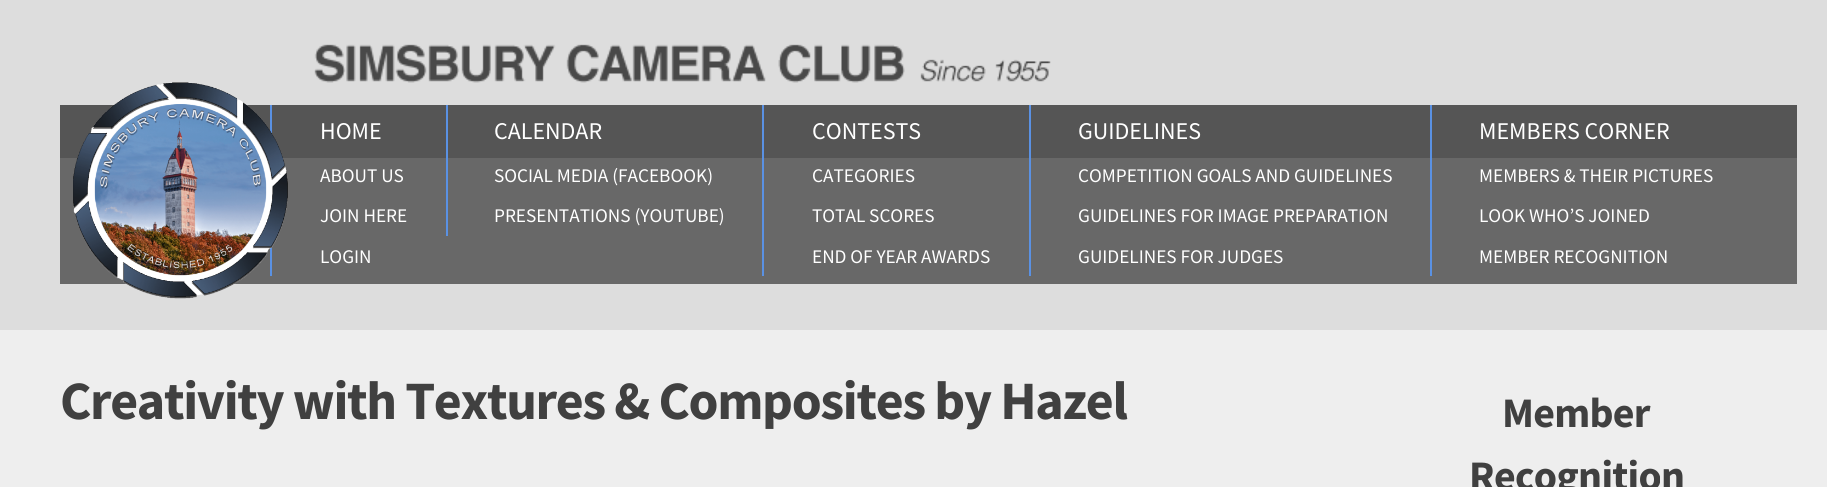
#include <cairo.h>
#include <math.h>
#include <stddef.h>

static cairo_t *c;
static void C(unsigned color){cairo_set_source_rgb(c, (color >> 16) / 255.0, (color >> 8 & 255) / 255.0, (color & 255) / 255.0);}
static void F(const char *family, double size, int italic, int bold){cairo_select_font_face(c, family, italic ? CAIRO_FONT_SLANT_ITALIC : CAIRO_FONT_SLANT_NORMAL,bold ? CAIRO_FONT_WEIGHT_BOLD : CAIRO_FONT_WEIGHT_NORMAL);cairo_set_font_size(c, size);}
static void T(double x, double y, const char *s){cairo_move_to(c, x, y);cairo_show_text(c, s);}
static void L(double x, double y, const char *s, double letter, double word){cairo_move_to(c, x, y);while (*s) {char ch[5] = {0};int n = 0;do ch[n++] = *s++; while ((*s & 0xC0) == 0x80);cairo_show_text(c, ch);cairo_rel_move_to(c, letter + word * (*ch == ' '), 0);}}
static void R(double x, double y, double w, double h){cairo_rectangle(c, x, y, w, h);cairo_fill(c);}
static void I(const char *path, double x, double y, double w, double h){cairo_surface_t *image = cairo_image_surface_create_from_png(path);cairo_save(c);cairo_set_source_surface(c, image, x, y);cairo_rectangle(c, x, y, w, h);cairo_fill(c);cairo_restore(c);cairo_surface_destroy(image);}
int main(void) {
cairo_surface_t *surface = cairo_image_surface_create(CAIRO_FORMAT_RGB24, 1827, 487);
c = cairo_create(surface);
cairo_font_options_t *options = cairo_font_options_create();
cairo_font_options_set_hint_metrics(options, CAIRO_HINT_METRICS_OFF);
cairo_font_options_set_hint_style(options, CAIRO_HINT_STYLE_NONE);
cairo_set_font_options(c, options);
cairo_set_miter_limit(c, 4);
C(0xeeeeee);
cairo_paint(c);
C(0xdddddd);
R(0,0,1827,330);
I("1.png",314,44,737,39);
C(0x686868);
R(60,158,1737,126);
C(0x555555);
R(60,105,1737,53);
C(0x5a91e3);
R(270,105,2,171);
I("2.png",73,82,215,217);
F("Source Sans Pro",24,0,0);
C(0xffffff);
T(320,139,"HOME");
F("Source Sans Pro",19.25,0,0);
T(320,182,"ABOUT US");
T(320,222,"JOIN HERE");
T(320,263,"LOGIN");
C(0x5a91e3);
R(446,105,2,131);
F("Source Sans Pro",24,0,0);
C(0xffffff);
T(494,139,"CALENDAR");
F("Source Sans Pro",19.25,0,0);
T(494,182,"SOCIAL MEDIA (FACEBOOK)");
T(494,222,"PRESENTATIONS (YOUTUBE)");
C(0x5a91e3);
R(762,105,2,171);
F("Source Sans Pro",24,0,0);
C(0xffffff);
T(812,139,"CONTESTS");
F("Source Sans Pro",19.25,0,0);
T(812,182,"CATEGORIES");
T(812,222,"TOTAL SCORES");
T(812,263,"END OF YEAR AWARDS");
C(0x5a91e3);
R(1029,105,2,171);
F("Source Sans Pro",24,0,0);
C(0xffffff);
T(1078,139,"GUIDELINES");
F("Source Sans Pro",19.25,0,0);
T(1078,182,"COMPETITION GOALS AND GUIDELINES");
T(1078,222,"GUIDELINES FOR IMAGE PREPARATION");
T(1078,263,"GUIDELINES FOR JUDGES");
C(0x5a91e3);
R(1430,105,2,171);
F("Source Sans Pro",24,0,0);
C(0xffffff);
T(1479,139,"MEMBERS CORNER");
F("Source Sans Pro",19.25,0,0);
T(1479,182,"MEMBERS & THEIR PICTURES");
T(1479,222,"LOOK WHO’S JOINED");
T(1479,263,"MEMBER RECOGNITION");
F("Source Sans Pro",54,0,1);
C(0x404040);
L(60,419,"Creativity with Textures & Composites by Hazel",-1.35,0);
F("Source Sans Pro",42,0,1);
L(1502,427,"Member",-.75,0);
L(1469,490,"Recognition",-.75,0);
cairo_surface_write_to_png(surface, "o.png");
cairo_font_options_destroy(options);
cairo_destroy(c);
cairo_surface_destroy(surface);
return 0;
}
